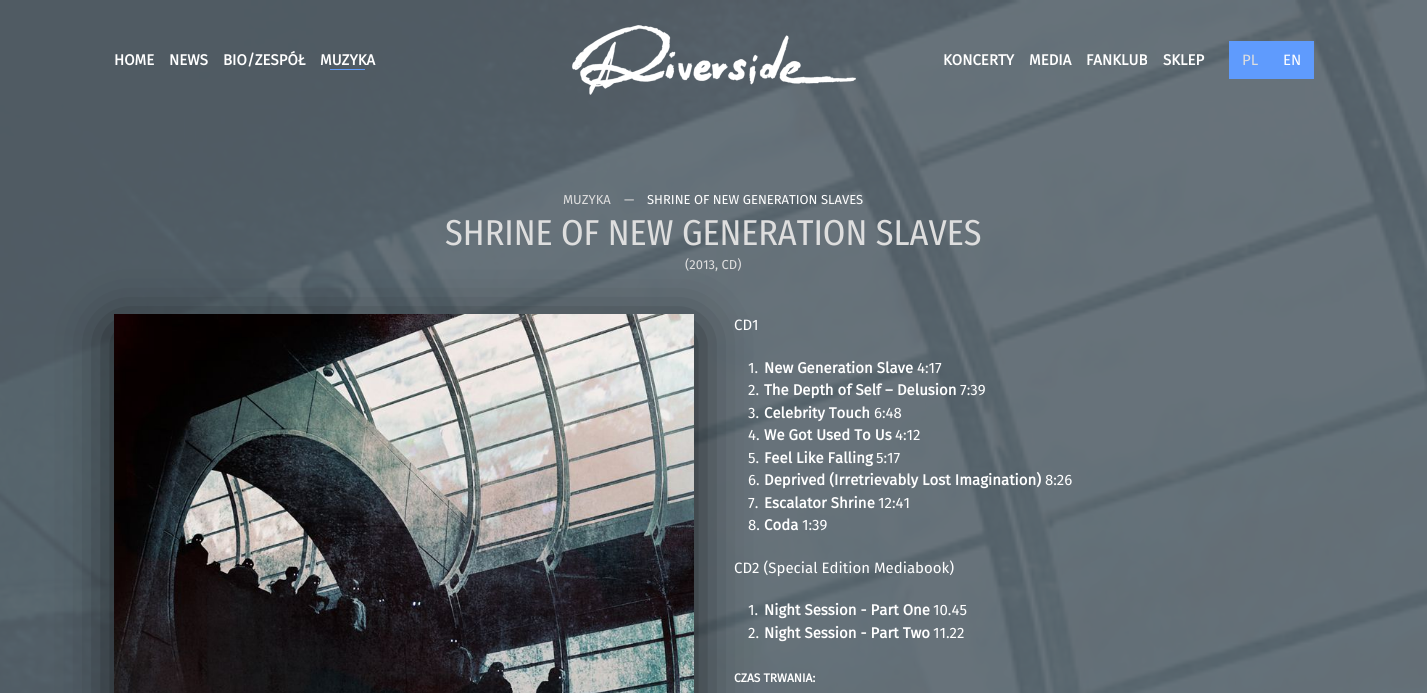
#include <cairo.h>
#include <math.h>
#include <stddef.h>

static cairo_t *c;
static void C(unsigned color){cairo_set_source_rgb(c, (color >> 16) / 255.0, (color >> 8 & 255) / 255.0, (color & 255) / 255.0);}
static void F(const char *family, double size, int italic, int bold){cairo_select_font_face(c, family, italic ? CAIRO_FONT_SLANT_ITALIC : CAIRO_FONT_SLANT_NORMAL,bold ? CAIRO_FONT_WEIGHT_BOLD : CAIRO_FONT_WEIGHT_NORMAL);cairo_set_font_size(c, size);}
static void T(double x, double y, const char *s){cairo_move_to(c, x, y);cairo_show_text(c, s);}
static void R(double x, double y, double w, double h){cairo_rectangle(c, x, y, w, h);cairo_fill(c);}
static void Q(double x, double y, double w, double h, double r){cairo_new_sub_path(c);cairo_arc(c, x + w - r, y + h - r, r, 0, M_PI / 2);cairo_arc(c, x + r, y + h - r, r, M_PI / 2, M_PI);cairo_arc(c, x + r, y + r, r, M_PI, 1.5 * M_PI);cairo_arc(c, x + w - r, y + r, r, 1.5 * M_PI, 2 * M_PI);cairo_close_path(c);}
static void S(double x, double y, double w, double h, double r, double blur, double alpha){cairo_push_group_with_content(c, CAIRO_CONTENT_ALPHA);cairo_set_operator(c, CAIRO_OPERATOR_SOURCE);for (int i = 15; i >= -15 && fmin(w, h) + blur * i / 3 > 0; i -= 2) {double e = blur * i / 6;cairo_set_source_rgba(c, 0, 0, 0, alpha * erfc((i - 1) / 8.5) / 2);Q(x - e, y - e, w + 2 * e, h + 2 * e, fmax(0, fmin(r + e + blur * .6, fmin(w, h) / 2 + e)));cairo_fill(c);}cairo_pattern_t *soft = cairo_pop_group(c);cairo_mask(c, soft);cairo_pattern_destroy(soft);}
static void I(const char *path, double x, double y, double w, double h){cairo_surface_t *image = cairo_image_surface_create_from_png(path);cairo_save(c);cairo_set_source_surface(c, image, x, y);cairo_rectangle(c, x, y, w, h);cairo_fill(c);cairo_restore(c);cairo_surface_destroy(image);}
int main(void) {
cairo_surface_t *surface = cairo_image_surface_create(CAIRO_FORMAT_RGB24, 1427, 693);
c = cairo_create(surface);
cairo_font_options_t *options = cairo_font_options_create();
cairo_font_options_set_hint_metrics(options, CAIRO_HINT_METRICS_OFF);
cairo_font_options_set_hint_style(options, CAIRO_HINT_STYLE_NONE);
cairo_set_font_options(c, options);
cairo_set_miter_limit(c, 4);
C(0xffffff);
cairo_paint(c);
I("2.png",0,0,1427,693);
F("Fira Sans",15,0,1);
C(0xffffff);
T(114,65,"HOME");
T(169,65,"NEWS");
T(223,65,"BIO/ZESPÓŁ");
T(320,65,"MUZYKA");
C(0x5f9bfd);
R(330,69,35,1);
I("1.png",572,25,284,70);
C(0xffffff);
T(943,65,"KONCERTY");
T(1029,65,"MEDIA");
T(1086,65,"FANKLUB");
T(1163,65,"SKLEP");
C(0x5f9bfd);
R(1229,41,85,38);
F("Fira Sans",15,0,0);
C(0xdedede);
T(1242,65,"PL");
C(0xffffff);
T(1283,65,"EN");
F("Fira Sans",13,0,0);
C(0xdedede);
T(563,204,"MUZYKA");
T(624,204,"—");
C(0xffffff);
T(647,204,"SHRINE OF NEW GENERATION SLAVES");
F("Fira Sans Condensed",36,0,0);
C(0xdedede);
T(445,245,"SHRINE OF NEW GENERATION SLAVES");
C(0x000000);
S(114,329,580,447,0,27.5,.7);
F("Fira Sans",13,0,0);
C(0xdedede);
T(685,269,"(2013, CD)");
I("3.png",114,314,580,379);
F("Fira Sans",15,0,0);
C(0xffffff);
T(734,330,"CD1");
T(748,373,"1.");
F("Fira Sans",15,0,1);
T(764,373,"New Generation Slave");
F("Fira Sans",15,0,0);
T(917,373,"4:17");
T(748,395,"2.");
F("Fira Sans",15,0,1);
T(764,395,"The Depth of Self – Delusion");
F("Fira Sans",15,0,0);
T(960,395,"7:39");
T(748,418,"3.");
F("Fira Sans",15,0,1);
T(764,418,"Celebrity Touch");
F("Fira Sans",15,0,0);
T(874,418,"6:48");
T(748,440,"4.");
F("Fira Sans",15,0,1);
T(764,440,"We Got Used To Us");
F("Fira Sans",15,0,0);
T(895,440,"4:12");
T(748,463,"5.");
F("Fira Sans",15,0,1);
T(764,463,"Feel Like Falling");
F("Fira Sans",15,0,0);
T(876,463,"5:17");
T(748,485,"6.");
F("Fira Sans",15,0,1);
T(764,485,"Deprived (Irretrievably Lost Imagination)");
F("Fira Sans",15,0,0);
T(1045,485,"8:26");
T(748,508,"7.");
F("Fira Sans",15,0,1);
T(764,508,"Escalator Shrine");
F("Fira Sans",15,0,0);
T(878,508,"12:41");
T(748,530,"8.");
F("Fira Sans",15,0,1);
T(764,530,"Coda");
F("Fira Sans",15,0,0);
T(802,530,"1:39");
T(734,573,"CD2 (Special Edition Mediabook)");
T(748,615,"1.");
F("Fira Sans",15,0,1);
T(764,615,"Night Session - Part One");
F("Fira Sans",15,0,0);
T(933,615,"10.45");
T(748,638,"2.");
F("Fira Sans",15,0,1);
T(764,638,"Night Session - Part Two");
F("Fira Sans",15,0,0);
T(933,638,"11.22");
F("Fira Sans",12,0,1);
T(734,682,"CZAS TRWANIA:");
cairo_surface_write_to_png(surface, "o.png");
cairo_font_options_destroy(options);
cairo_destroy(c);
cairo_surface_destroy(surface);
return 0;
}
